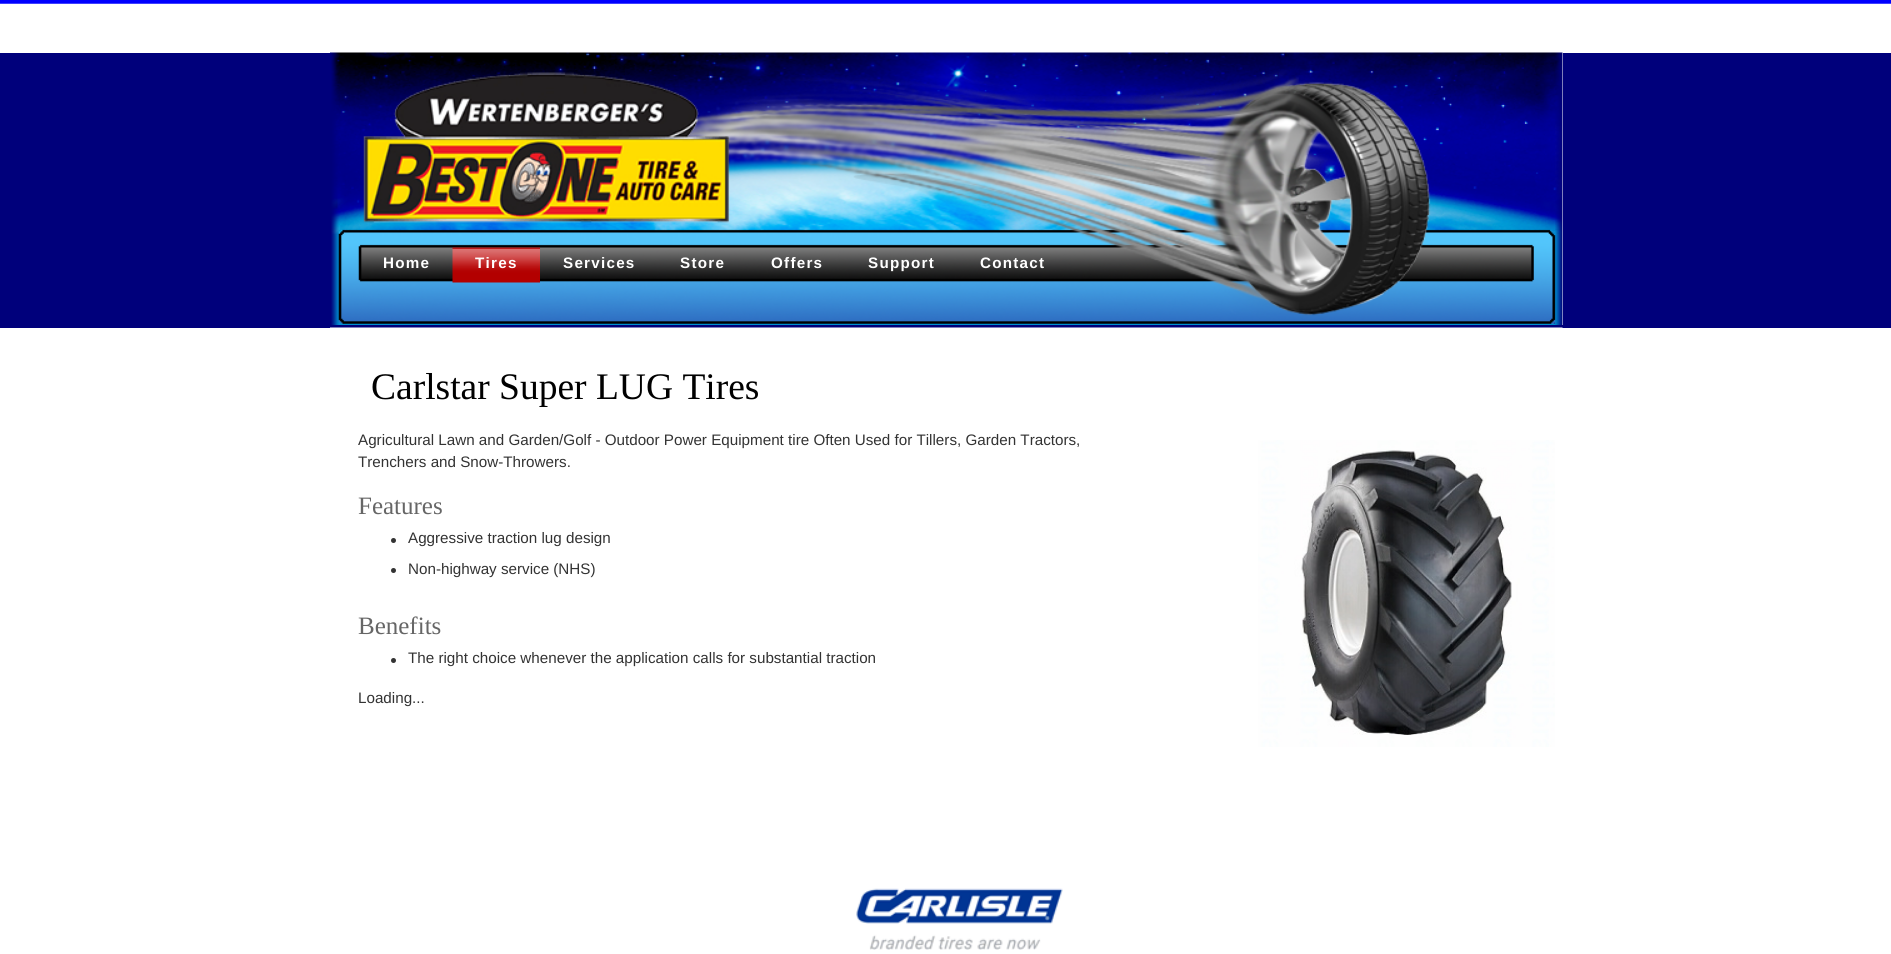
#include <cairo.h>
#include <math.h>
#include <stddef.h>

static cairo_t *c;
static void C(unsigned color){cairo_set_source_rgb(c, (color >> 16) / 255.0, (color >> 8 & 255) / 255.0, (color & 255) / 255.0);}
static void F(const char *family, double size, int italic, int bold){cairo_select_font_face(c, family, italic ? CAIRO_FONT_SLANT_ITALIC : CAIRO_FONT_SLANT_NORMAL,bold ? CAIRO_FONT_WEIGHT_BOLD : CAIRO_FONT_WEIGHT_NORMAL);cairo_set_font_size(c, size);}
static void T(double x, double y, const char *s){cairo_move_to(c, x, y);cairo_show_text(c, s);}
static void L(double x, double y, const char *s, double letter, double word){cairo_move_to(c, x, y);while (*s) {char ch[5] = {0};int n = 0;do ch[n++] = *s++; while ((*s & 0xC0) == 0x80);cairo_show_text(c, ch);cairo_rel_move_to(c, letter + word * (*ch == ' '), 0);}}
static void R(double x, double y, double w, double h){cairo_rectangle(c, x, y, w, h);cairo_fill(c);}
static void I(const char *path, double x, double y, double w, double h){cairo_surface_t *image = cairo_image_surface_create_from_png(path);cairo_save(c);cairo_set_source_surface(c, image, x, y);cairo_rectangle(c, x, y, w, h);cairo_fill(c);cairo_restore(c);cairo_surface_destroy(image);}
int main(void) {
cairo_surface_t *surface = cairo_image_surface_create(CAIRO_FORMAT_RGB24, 1891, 954);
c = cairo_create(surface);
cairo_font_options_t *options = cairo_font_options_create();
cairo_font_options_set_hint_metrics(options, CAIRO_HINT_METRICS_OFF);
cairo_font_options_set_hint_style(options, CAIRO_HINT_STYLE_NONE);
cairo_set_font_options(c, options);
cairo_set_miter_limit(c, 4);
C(0xffffff);
cairo_paint(c);
C(0x0000ff);
R(0,0,1891,3);
C(0x4040ff);
R(0,3,1891,1);
C(0x00007b);
R(0,53,1891,275);
C(0xffffff);
R(330,53,1233,272);
I("1.png",330,52,1233,273);
I("2.png",363,72,366,151);
F("Liberation Sans",15.2,0,1);
L(383,268,"Home",1.25,0);
I("3.png",452,247,88,36);
L(475,268,"Tires",1.25,0);
L(563,268,"Services",1.25,0);
L(680,268,"Store",1.25,0);
L(771,268,"Offers",1.25,0);
L(868,268,"Support",1.25,0);
L(980,268,"Contact",1.25,0);
I("4.png",330,327,1233,1);
F("Liberation Serif",37.5,0,0);
C(0x000000);
T(371,399,"Carlstar Super LUG Tires");
F("Liberation Sans",15.2,0,0);
C(0x333333);
T(358,445,"Agricultural Lawn and Garden/Golf - Outdoor Power Equipment tire Often Used for Tillers, Garden Tractors,");
T(358,467,"Trenchers and Snow-Throwers.");
F("Liberation Serif",25,0,0);
C(0x666666);
T(358,514,"Features");
C(0x333333);
cairo_new_path(c);
cairo_arc(c,393.5,540.5,2.5,0,2 * M_PI);
cairo_fill(c);
F("Liberation Sans",15.2,0,0);
T(408,543,"Aggressive traction lug design");
cairo_new_path(c);
cairo_arc(c,393.5,570.5,2.5,0,2 * M_PI);
cairo_fill(c);
T(408,574,"Non-highway service (NHS)");
F("Liberation Serif",25,0,0);
C(0x666666);
T(358,634,"Benefits");
C(0x333333);
cairo_new_path(c);
cairo_arc(c,393.5,660.5,2.5,0,2 * M_PI);
cairo_fill(c);
F("Liberation Sans",15.2,0,0);
T(408,663,"The right choice whenever the application calls for substantial traction");
T(358,703,"Loading...");
I("5.png",1258,440,297,307);
I("6.png",856,888,207,62);
cairo_surface_write_to_png(surface, "o.png");
cairo_font_options_destroy(options);
cairo_destroy(c);
cairo_surface_destroy(surface);
return 0;
}
